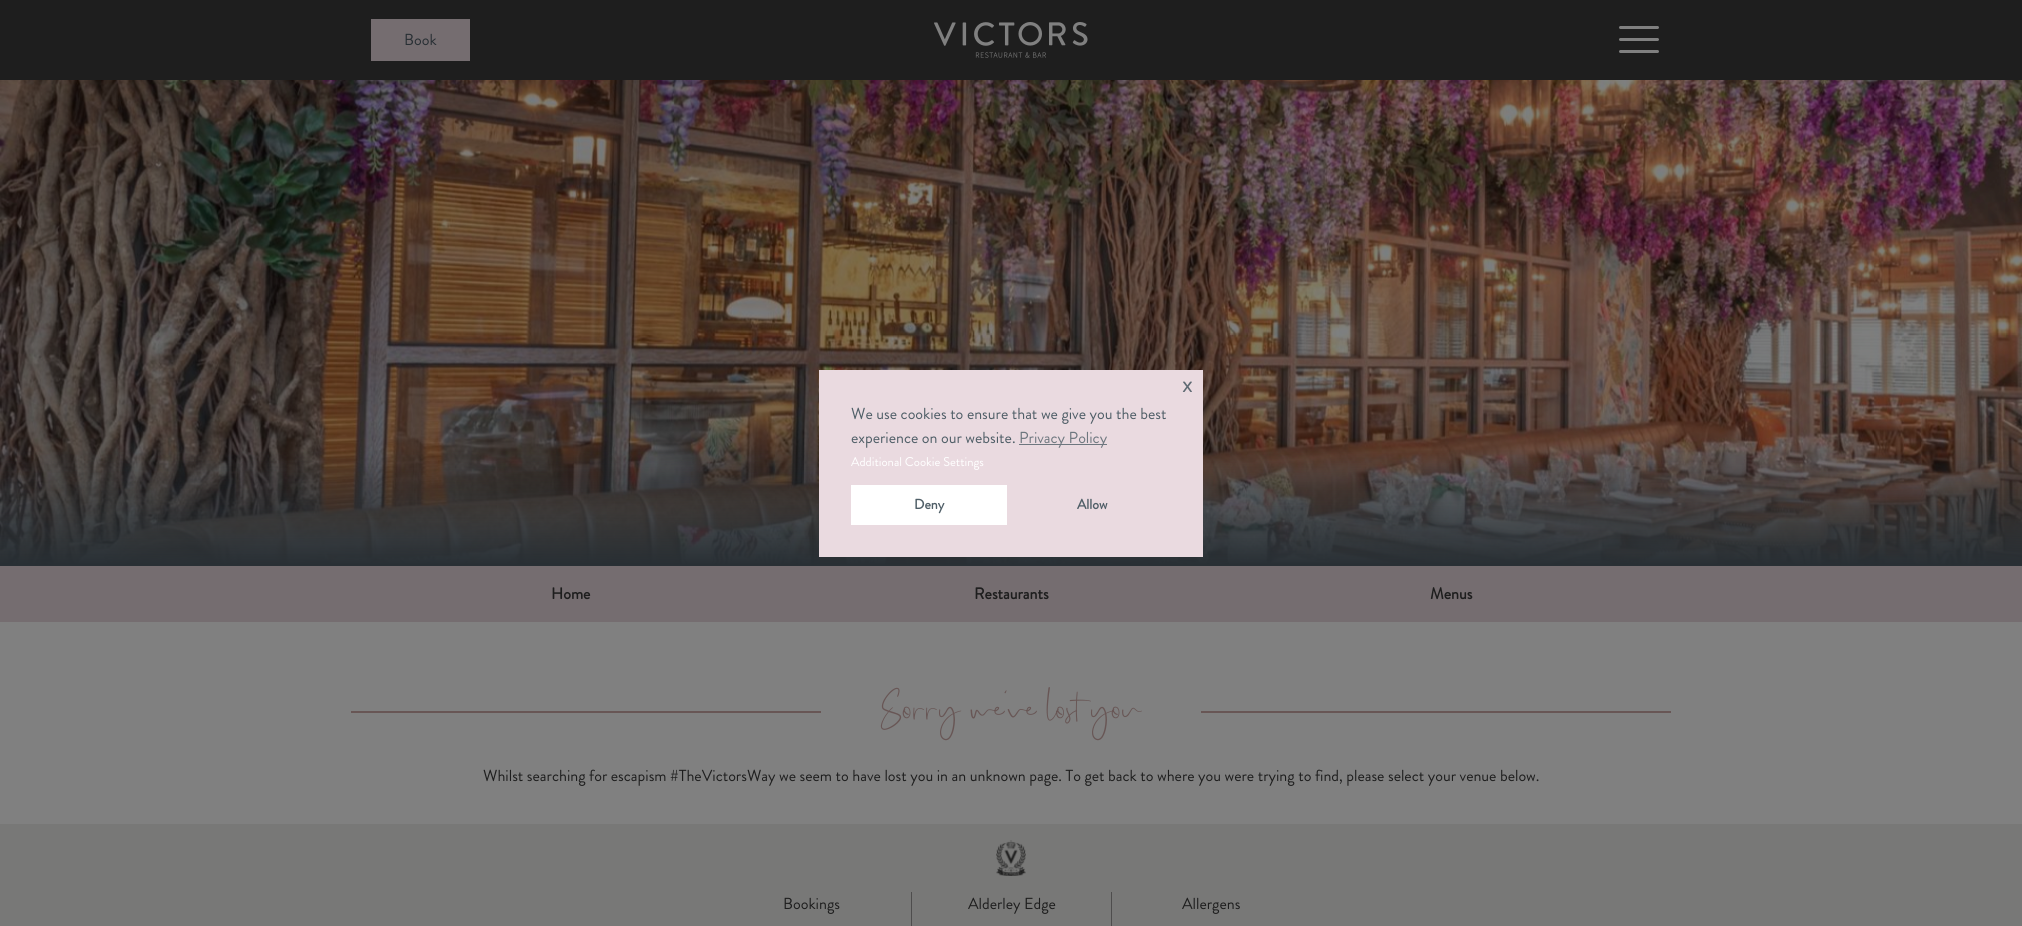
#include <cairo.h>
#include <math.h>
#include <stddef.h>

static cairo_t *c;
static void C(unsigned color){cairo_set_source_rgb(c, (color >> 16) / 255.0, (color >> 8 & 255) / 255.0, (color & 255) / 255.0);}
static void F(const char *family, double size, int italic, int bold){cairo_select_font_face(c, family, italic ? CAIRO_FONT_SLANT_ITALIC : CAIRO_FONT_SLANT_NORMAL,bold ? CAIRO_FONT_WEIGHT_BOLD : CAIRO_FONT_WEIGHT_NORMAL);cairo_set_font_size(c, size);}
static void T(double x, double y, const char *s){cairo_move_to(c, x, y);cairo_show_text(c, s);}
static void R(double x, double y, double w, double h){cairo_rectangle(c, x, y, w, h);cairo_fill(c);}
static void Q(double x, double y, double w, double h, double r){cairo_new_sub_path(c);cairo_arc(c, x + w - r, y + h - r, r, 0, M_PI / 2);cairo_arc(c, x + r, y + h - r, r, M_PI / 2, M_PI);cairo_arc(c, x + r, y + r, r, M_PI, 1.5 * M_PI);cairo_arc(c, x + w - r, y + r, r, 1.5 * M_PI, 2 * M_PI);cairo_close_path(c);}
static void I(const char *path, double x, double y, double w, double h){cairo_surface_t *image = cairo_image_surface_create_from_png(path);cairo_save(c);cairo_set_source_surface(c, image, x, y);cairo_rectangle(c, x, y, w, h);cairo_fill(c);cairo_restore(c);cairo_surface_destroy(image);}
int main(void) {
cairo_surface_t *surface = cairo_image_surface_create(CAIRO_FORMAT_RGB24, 2022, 926);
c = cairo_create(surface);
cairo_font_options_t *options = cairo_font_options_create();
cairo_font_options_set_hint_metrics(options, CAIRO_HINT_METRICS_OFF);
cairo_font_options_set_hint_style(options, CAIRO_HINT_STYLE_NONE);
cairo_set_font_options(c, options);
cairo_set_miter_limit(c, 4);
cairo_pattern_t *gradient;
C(0x808080);
cairo_paint(c);
C(0x1e1e1e);
R(0,0,2022,80);
C(0x756d70);
R(371,19,99,42);
F("Brandon Grotesque",16,0,0);
C(0x282f34);
T(404,45,"Book");
I("1.png",934,22,154,36);
C(0x808080);
Q(1619,26,40,3,1.5);
cairo_fill(c);
Q(1619,38,40,3,1.5);
cairo_fill(c);
Q(1619,50,40,3,1.5);
cairo_fill(c);
I("2.png",0,80,2022,485);
gradient = cairo_pattern_create_linear(1011,446,1011,566);
cairo_pattern_add_color_stop_rgba(gradient,0,0.157,0.184,0.204,0);
cairo_pattern_add_color_stop_rgba(gradient,1,0.157,0.184,0.204,1);
cairo_set_source(c,gradient);
cairo_pattern_destroy(gradient);
R(0,450,2022,116);
C(0x756d70);
R(0,566,2022,56);
F("Brandon Grotesque",16,0,1);
C(0x1e1e1e);
T(551,599,"Home");
T(974,599,"Restaurants");
T(1430,599,"Menus");
C(0x685655);
R(351,711,470,2);
F("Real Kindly",48,0,1);
T(881,722,"Sorry we've lost you");
R(1201,711,470,2);
F("Brandon Grotesque",16,0,0);
C(0x1e1e1e);
T(483,781,"Whilst searching for escapism #TheVictorsWay we seem to have lost you in an unknown page. To get back to where you were trying to find, please select your venue below.");
C(0x787877);
R(0,824,2022,102);
I("3.png",996,840,30,36);
C(0x1e1e1e);
T(783,909,"Bookings");
C(0x4e4d4d);
R(911,892,1,34);
C(0x1e1e1e);
T(968,909,"Alderley Edge");
C(0x4e4d4d);
R(1111,892,1,34);
C(0x1e1e1e);
T(1182,909,"Allergens");
C(0xeadae0);
R(819,370,384,187);
F("Brandon Grotesque",26,0,0);
C(0x5f6a73);
T(1182,392,"x");
F("Brandon Grotesque",16,0,0);
C(0x4f5e67);
T(851,419,"We use cookies to ensure that we give you the best");
T(851,443,"experience on our website.");
C(0x6e777f);
R(1019,444,88,1);
T(1019,443,"Privacy Policy");
F("Brandon Grotesque",12.75,0,0);
C(0xffffff);
T(851,466,"Additional Cookie Settings");
R(851,485,156,40);
F("Brandon Grotesque",14,0,1);
C(0x4f5e67);
T(914,509,"Deny");
T(1077,509,"Allow");
cairo_surface_write_to_png(surface, "o.png");
cairo_font_options_destroy(options);
cairo_destroy(c);
cairo_surface_destroy(surface);
return 0;
}
